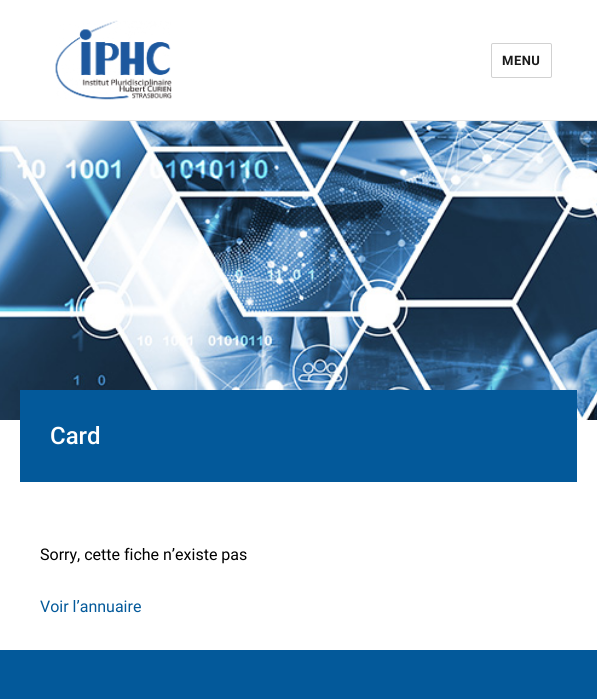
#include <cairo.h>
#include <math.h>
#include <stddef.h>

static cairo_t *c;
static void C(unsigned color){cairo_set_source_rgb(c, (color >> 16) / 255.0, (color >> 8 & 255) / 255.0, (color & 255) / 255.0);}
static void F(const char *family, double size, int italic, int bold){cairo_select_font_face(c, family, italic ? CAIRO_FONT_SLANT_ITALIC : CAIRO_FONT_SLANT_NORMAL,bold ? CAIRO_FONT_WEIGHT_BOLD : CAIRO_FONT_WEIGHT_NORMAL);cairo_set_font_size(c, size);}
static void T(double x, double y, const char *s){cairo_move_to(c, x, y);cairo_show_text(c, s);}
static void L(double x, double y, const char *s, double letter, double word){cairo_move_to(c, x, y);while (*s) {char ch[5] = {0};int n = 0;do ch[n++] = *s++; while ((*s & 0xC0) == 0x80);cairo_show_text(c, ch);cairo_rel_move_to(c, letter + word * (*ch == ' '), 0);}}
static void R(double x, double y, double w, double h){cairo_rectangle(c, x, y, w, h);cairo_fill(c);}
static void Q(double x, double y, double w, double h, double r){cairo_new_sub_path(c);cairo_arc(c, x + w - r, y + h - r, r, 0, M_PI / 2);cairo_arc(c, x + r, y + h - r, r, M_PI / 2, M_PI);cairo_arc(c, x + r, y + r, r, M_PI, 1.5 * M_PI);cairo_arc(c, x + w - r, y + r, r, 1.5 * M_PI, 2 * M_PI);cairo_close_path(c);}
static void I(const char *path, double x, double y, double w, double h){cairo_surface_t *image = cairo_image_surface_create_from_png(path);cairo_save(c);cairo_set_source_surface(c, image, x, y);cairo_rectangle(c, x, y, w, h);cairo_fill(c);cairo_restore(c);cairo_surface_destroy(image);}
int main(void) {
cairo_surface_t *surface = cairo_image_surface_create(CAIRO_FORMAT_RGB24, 597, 699);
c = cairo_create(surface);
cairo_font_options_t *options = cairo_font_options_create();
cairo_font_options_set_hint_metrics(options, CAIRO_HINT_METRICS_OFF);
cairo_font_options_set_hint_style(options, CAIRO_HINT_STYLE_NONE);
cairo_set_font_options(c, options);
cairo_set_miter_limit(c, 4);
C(0xffffff);
cairo_paint(c);
C(0xe6e6e6);
R(0,120,597,1);
I("1.png",55,20,117,80);
Q(491.5,43.5,60,34,1.5);
C(0xd1d1d1);
cairo_set_line_width(c,1);
cairo_stroke(c);
F("Roboto",13,0,1);
C(0x1a1a1a);
L(502,65,"MENU",.5,0);
I("2.png",0,121,597,299);
C(0x03599a);
R(20,390,557,92);
F("Roboto Medium",24,0,0);
C(0xffffff);
T(50,444,"Card");
F("Roboto",16,0,0);
C(0x000000);
T(40,560,"Sorry, cette fiche n’existe pas");
C(0x03599a);
T(40,612,"Voir l’annuaire");
R(0,650,597,49);
cairo_surface_write_to_png(surface, "o.png");
cairo_font_options_destroy(options);
cairo_destroy(c);
cairo_surface_destroy(surface);
return 0;
}
